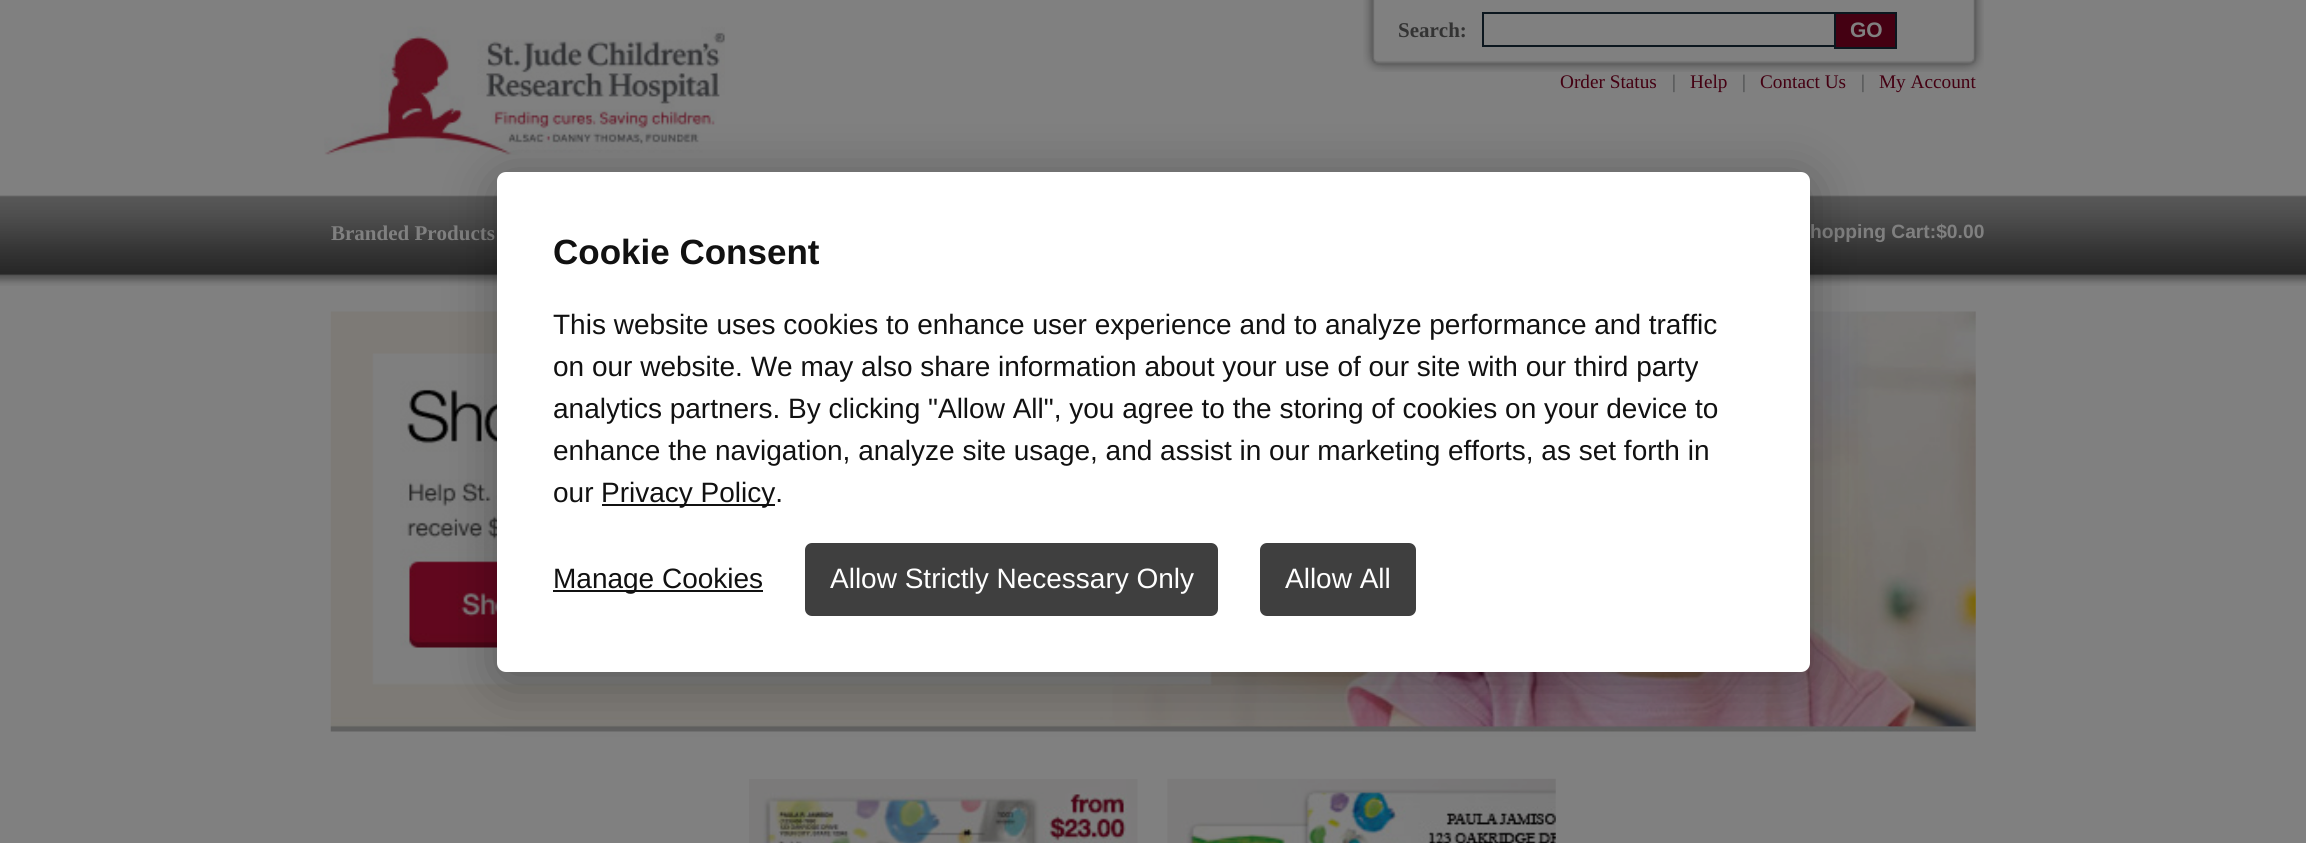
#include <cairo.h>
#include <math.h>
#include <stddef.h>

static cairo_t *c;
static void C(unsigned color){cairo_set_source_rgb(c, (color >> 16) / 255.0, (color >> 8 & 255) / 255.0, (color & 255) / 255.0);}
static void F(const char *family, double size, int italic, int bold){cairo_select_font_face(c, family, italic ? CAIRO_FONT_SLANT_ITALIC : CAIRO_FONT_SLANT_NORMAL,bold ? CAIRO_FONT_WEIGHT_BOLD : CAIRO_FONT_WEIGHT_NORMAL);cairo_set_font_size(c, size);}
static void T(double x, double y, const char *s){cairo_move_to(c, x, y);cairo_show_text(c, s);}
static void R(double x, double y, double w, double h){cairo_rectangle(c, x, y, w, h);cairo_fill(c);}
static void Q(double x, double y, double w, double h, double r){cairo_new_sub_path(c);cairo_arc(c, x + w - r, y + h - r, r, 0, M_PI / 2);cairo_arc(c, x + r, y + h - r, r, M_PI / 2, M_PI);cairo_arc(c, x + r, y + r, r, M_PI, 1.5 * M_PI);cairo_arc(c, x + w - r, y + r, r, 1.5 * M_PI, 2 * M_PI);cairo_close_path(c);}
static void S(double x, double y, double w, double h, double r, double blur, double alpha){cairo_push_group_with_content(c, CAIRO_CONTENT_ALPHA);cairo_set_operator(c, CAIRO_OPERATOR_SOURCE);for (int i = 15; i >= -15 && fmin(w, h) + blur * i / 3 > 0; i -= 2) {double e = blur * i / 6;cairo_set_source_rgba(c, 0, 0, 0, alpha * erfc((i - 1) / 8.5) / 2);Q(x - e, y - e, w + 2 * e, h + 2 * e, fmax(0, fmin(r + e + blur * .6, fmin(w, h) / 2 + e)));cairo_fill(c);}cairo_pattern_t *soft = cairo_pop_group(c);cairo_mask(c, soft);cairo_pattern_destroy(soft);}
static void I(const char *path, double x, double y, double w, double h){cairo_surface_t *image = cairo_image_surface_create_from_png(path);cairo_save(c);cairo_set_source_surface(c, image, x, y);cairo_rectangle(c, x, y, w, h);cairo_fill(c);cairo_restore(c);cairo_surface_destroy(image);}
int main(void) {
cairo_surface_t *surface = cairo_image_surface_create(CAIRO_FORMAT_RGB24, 2306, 843);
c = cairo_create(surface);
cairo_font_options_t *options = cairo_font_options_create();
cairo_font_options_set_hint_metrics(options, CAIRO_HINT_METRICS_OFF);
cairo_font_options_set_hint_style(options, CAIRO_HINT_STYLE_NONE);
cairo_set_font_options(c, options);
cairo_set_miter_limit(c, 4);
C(0x808080);
cairo_paint(c);
I("1.png",0,195,2306,91);
I("2.png",1363,0,621,72);
F("Liberation Serif",21,0,1);
C(0x333333);
T(1398,37,"Search:");
cairo_rectangle(c,1483,13,352,33);
C(0x0b161e);
cairo_stroke(c);
C(0x440012);
cairo_rectangle(c,1835,13,61,35);
cairo_fill_preserve(c);
C(0x0b161e);
cairo_stroke(c);
F("Liberation Sans",21,0,1);
C(0x808080);
T(1850,37,"GO");
I("3.png",324,26,401,129);
F("Liberation Serif",19.25,0,0);
C(0x440012);
T(1560,88,"Order Status");
C(0x404143);
T(1672,88,"|");
C(0x440012);
T(1690,88,"Help");
C(0x404143);
T(1742,88,"|");
C(0x440012);
T(1760,88,"Contact Us");
C(0x404143);
T(1861,88,"|");
C(0x440012);
T(1879,88,"My Account");
F("Liberation Serif",21,0,1);
C(0x808080);
T(331,240,"Branded Products");
F("Liberation Sans",19.25,0,1);
T(1810,238,"hopping Cart:$0.00");
I("4.png",330,311,1646,421);
I("5.png",749,779,389,64);
I("6.png",1167,778,389,65);
C(0x000000);
S(497,180,1313,501,9,26,.3);
C(0xffffff);
Q(497,172,1313,500,9);
cairo_fill(c);
F("Liberation Sans",35,0,1);
C(0x111111);
T(553,264,"Cookie Consent");
F("Liberation Sans",28,0,0);
T(553,334,"This website uses cookies to enhance user experience and to analyze performance and traffic");
T(553,376,"on our website. We may also share information about your use of our site with our third party");
T(553,418,"analytics partners. By clicking \"Allow All\", you agree to the storing of cookies on your device to");
T(553,460,"enhance the navigation, analyze site usage, and assist in our marketing efforts, as set forth in");
T(553,502,"our");
R(602,504,173,2);
T(601,502,"Privacy Policy.");
R(553,590,210,2);
T(553,588,"Manage Cookies");
C(0x3f3f3f);
Q(805,543,413,73,7);
cairo_fill(c);
C(0xffffff);
T(830,588,"Allow Strictly Necessary Only");
C(0x3f3f3f);
Q(1260,543,156,73,7);
cairo_fill(c);
C(0xffffff);
T(1285,588,"Allow All");
cairo_surface_write_to_png(surface, "o.png");
cairo_font_options_destroy(options);
cairo_destroy(c);
cairo_surface_destroy(surface);
return 0;
}
